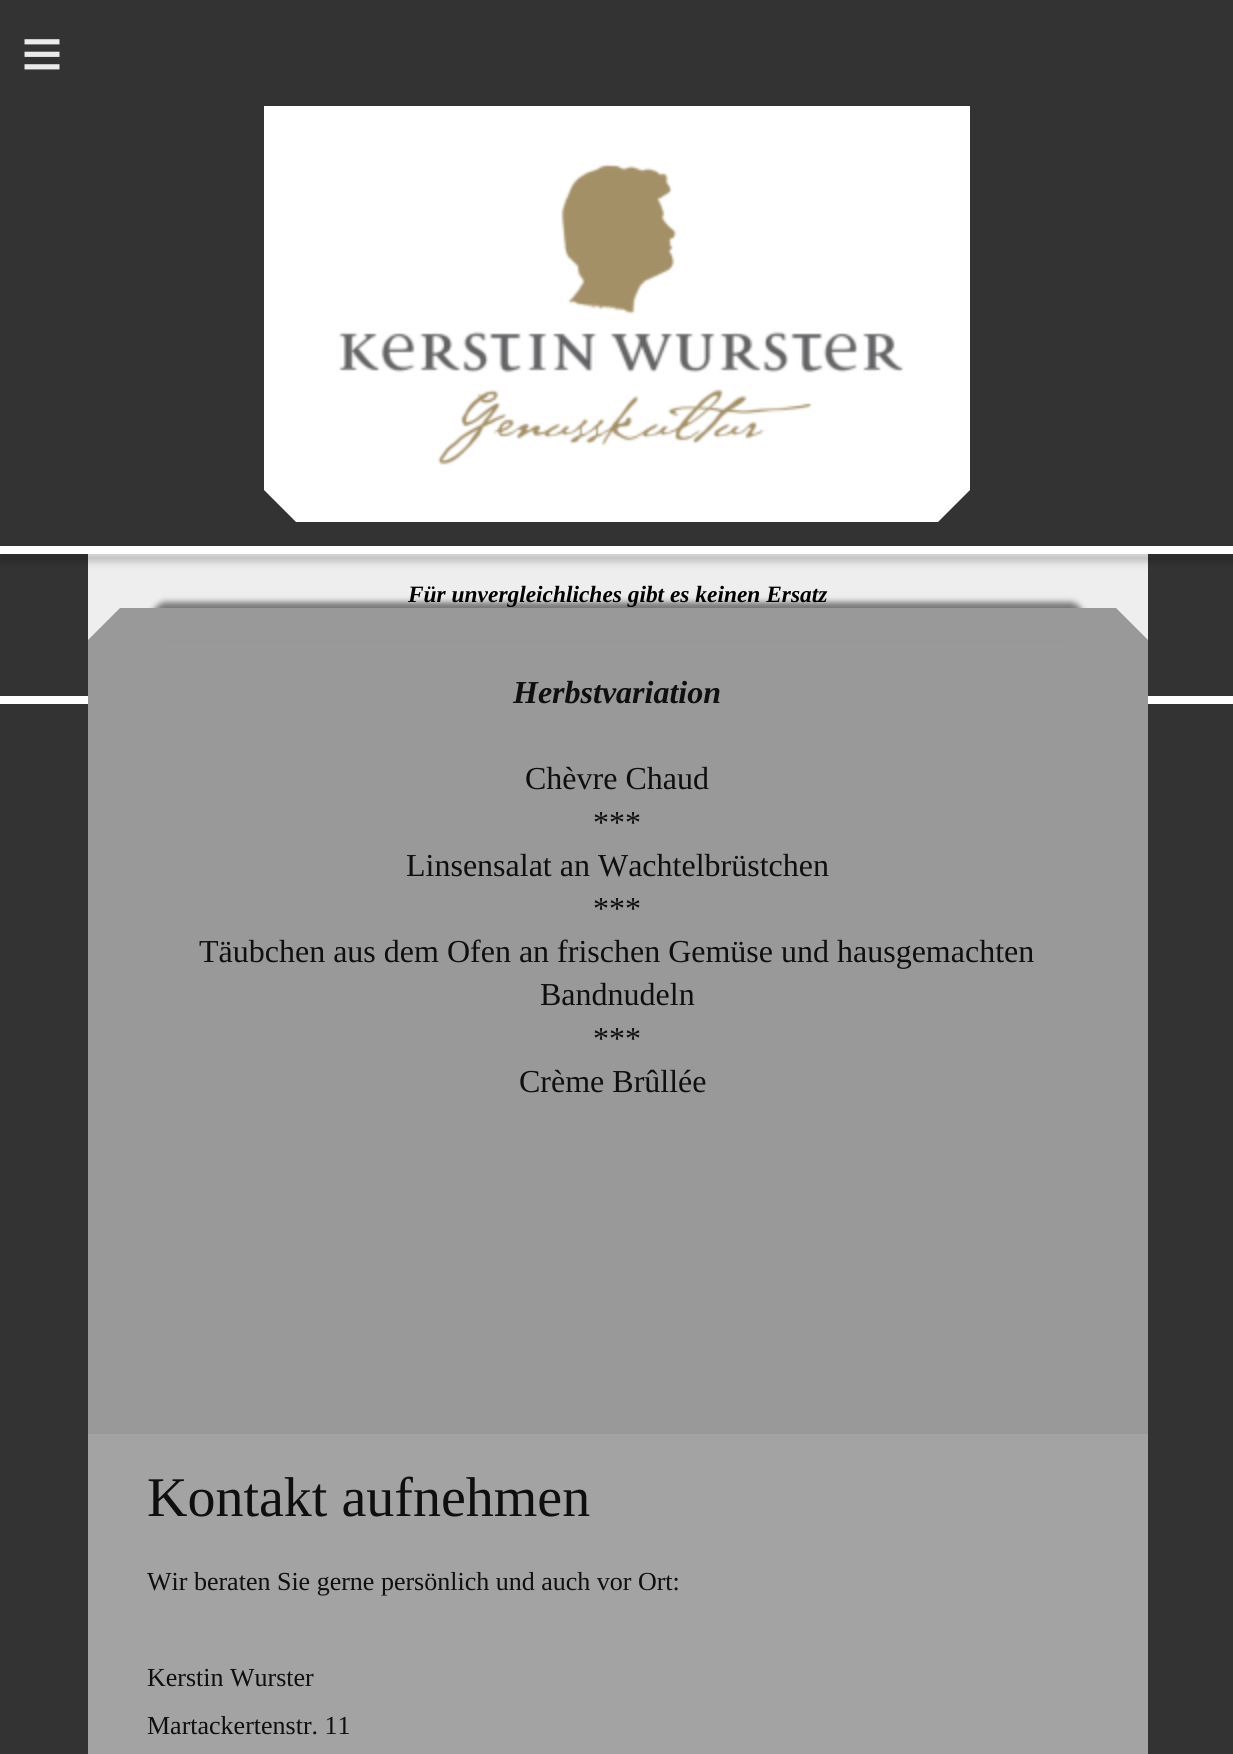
#include <cairo.h>
#include <math.h>
#include <stddef.h>

static cairo_t *c;
static void C(unsigned color){cairo_set_source_rgb(c, (color >> 16) / 255.0, (color >> 8 & 255) / 255.0, (color & 255) / 255.0);}
static void F(const char *family, double size, int italic, int bold){cairo_select_font_face(c, family, italic ? CAIRO_FONT_SLANT_ITALIC : CAIRO_FONT_SLANT_NORMAL,bold ? CAIRO_FONT_WEIGHT_BOLD : CAIRO_FONT_WEIGHT_NORMAL);cairo_set_font_size(c, size);}
static void T(double x, double y, const char *s){cairo_move_to(c, x, y);cairo_show_text(c, s);}
static void L(double x, double y, const char *s, double letter, double word){cairo_move_to(c, x, y);while (*s) {char ch[5] = {0};int n = 0;do ch[n++] = *s++; while ((*s & 0xC0) == 0x80);cairo_show_text(c, ch);cairo_rel_move_to(c, letter + word * (*ch == ' '), 0);}}
static void R(double x, double y, double w, double h){cairo_rectangle(c, x, y, w, h);cairo_fill(c);}
static void Q(double x, double y, double w, double h, double r){cairo_new_sub_path(c);cairo_arc(c, x + w - r, y + h - r, r, 0, M_PI / 2);cairo_arc(c, x + r, y + h - r, r, M_PI / 2, M_PI);cairo_arc(c, x + r, y + r, r, M_PI, 1.5 * M_PI);cairo_arc(c, x + w - r, y + r, r, 1.5 * M_PI, 2 * M_PI);cairo_close_path(c);}
static void S(double x, double y, double w, double h, double r, double blur, double alpha){cairo_push_group_with_content(c, CAIRO_CONTENT_ALPHA);cairo_set_operator(c, CAIRO_OPERATOR_SOURCE);for (int i = 15; i >= -15 && fmin(w, h) + blur * i / 3 > 0; i -= 2) {double e = blur * i / 6;cairo_set_source_rgba(c, 0, 0, 0, alpha * erfc((i - 1) / 8.5) / 2);Q(x - e, y - e, w + 2 * e, h + 2 * e, fmax(0, fmin(r + e + blur * .6, fmin(w, h) / 2 + e)));cairo_fill(c);}cairo_pattern_t *soft = cairo_pop_group(c);cairo_mask(c, soft);cairo_pattern_destroy(soft);}
static void I(const char *path, double x, double y, double w, double h){cairo_surface_t *image = cairo_image_surface_create_from_png(path);cairo_save(c);cairo_set_source_surface(c, image, x, y);cairo_rectangle(c, x, y, w, h);cairo_fill(c);cairo_restore(c);cairo_surface_destroy(image);}
int main(void) {
cairo_surface_t *surface = cairo_image_surface_create(CAIRO_FORMAT_RGB24, 1233, 1754);
c = cairo_create(surface);
cairo_font_options_t *options = cairo_font_options_create();
cairo_font_options_set_hint_metrics(options, CAIRO_HINT_METRICS_OFF);
cairo_font_options_set_hint_style(options, CAIRO_HINT_STYLE_NONE);
cairo_set_font_options(c, options);
cairo_set_miter_limit(c, 4);
C(0x333333);
cairo_paint(c);
F("Liberation Sans",72,0,0);
C(0xebebeb);
L(21,78,"≡",21,0);
C(0xffffff);
R(264,106,706,384);
I("1.png",339,163,565,302);
cairo_new_path(c);
cairo_move_to(c,264,490);
cairo_line_to(c,970,490);
cairo_line_to(c,938,522);
cairo_line_to(c,296,522);
cairo_close_path(c);
cairo_fill(c);
C(0xeeeeee);
R(88,554,1060,86);
C(0x000000);
S(0,554,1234,8,0,4,.2);
C(0xffffff);
R(0,546,1233,8);
F("Liberation Serif",23.4,1,1);
C(0x000000);
T(408,602,"Für unvergleichliches gibt es keinen Ersatz");
C(0xffffff);
R(0,696,1233,8);
C(0x999999);
R(88,640,1060,794);
C(0x000000);
S(152,602,932,32,16,3,.5);
C(0x999999);
cairo_new_path(c);
cairo_move_to(c,1148,640);
cairo_line_to(c,88,640);
cairo_line_to(c,120,608);
cairo_line_to(c,1116,608);
cairo_close_path(c);
cairo_fill(c);
F("Liberation Serif",32,1,1);
C(0x0f0f0f);
T(513,703,"Herbstvariation");
F("Liberation Serif",32,0,0);
T(525,789,"Chèvre Chaud");
T(593,833,"***");
T(406,876,"Linsensalat an Wachtelbrüstchen");
T(593,919,"***");
T(199,962,"Täubchen aus dem Ofen an frischen Gemüse und hausgemachten");
T(540,1005,"Bandnudeln");
T(593,1049,"***");
T(519,1092,"Crème Brûllée");
C(0xa3a3a3);
R(88,1434,1060,320);
F("Liberation Serif",56,0,0);
C(0x0f0f0f);
T(147,1516,"Kontakt aufnehmen");
F("Liberation Serif",26,0,0);
T(147,1590,"Wir beraten Sie gerne persönlich und auch vor Ort:");
T(147,1686,"Kerstin Wurster");
T(147,1734,"Martackertenstr. 11");
cairo_surface_write_to_png(surface, "o.png");
cairo_font_options_destroy(options);
cairo_destroy(c);
cairo_surface_destroy(surface);
return 0;
}
